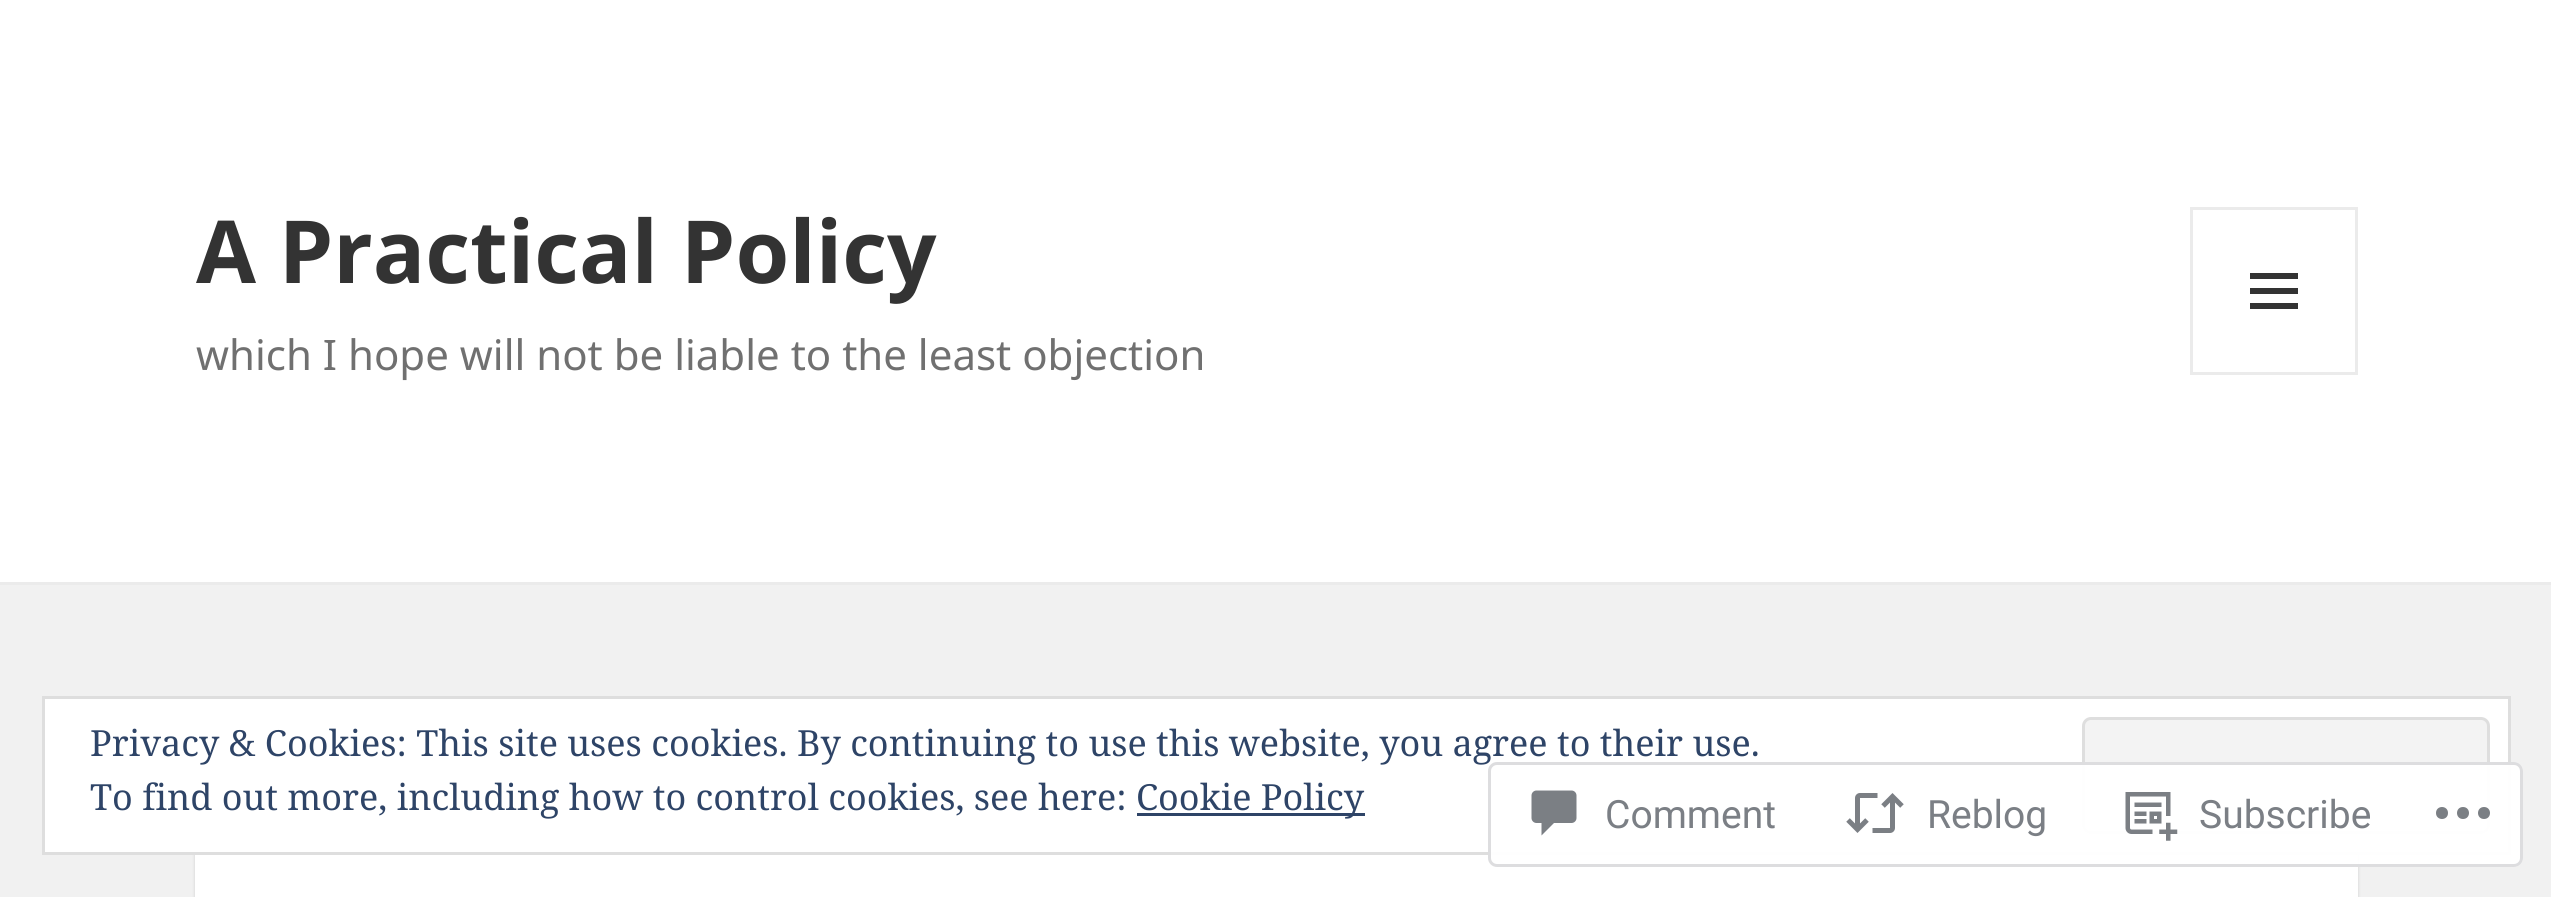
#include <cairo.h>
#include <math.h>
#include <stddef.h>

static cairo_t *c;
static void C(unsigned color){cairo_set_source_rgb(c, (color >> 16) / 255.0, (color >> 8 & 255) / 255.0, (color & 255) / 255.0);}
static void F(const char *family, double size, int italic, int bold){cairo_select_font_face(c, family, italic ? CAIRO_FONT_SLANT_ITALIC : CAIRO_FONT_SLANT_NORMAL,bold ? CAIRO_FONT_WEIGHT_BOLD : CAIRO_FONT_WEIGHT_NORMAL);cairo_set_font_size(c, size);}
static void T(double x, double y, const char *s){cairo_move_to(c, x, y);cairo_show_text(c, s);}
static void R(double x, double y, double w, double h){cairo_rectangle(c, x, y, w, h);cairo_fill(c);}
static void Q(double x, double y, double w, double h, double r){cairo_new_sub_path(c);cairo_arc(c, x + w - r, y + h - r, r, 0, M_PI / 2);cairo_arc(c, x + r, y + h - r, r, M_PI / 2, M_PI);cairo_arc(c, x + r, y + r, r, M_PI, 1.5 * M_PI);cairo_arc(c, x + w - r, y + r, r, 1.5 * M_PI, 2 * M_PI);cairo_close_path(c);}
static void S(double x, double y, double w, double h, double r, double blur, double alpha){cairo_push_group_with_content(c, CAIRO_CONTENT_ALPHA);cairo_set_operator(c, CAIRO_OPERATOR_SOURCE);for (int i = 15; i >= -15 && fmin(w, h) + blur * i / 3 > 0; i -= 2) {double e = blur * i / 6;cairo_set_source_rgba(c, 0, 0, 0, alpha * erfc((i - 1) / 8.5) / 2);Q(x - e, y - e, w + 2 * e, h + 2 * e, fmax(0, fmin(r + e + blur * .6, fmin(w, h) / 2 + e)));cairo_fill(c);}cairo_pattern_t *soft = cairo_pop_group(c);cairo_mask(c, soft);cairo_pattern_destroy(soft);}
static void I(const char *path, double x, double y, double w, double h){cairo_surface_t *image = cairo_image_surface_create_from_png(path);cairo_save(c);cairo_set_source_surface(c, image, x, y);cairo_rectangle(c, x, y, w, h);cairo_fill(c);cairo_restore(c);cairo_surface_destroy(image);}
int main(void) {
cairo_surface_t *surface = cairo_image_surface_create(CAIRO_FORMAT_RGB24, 2551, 897);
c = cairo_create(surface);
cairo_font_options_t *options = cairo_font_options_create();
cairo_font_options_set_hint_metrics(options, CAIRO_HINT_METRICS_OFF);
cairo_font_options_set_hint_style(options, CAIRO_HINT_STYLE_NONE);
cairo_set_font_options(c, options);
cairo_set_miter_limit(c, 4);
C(0xf1f1f1);
cairo_paint(c);
C(0xffffff);
R(0,0,2551,582);
C(0xebebeb);
R(0,582,2551,3);
F("Noto Sans",87,0,1);
C(0x333333);
T(196,283,"A Practical Policy");
cairo_rectangle(c,2191.5,208.5,165,165);
C(0xebebeb);
cairo_set_line_width(c,3);
cairo_stroke(c);
C(0x333333);
cairo_new_path(c);
cairo_move_to(c,2250,309);
cairo_line_to(c,2250,303);
cairo_line_to(c,2298,303);
cairo_line_to(c,2298,309);
cairo_close_path(c);
cairo_move_to(c,2250,273);
cairo_line_to(c,2298,273);
cairo_line_to(c,2298,279);
cairo_line_to(c,2250,279);
cairo_close_path(c);
cairo_move_to(c,2250,294);
cairo_line_to(c,2250,288);
cairo_line_to(c,2298,288);
cairo_line_to(c,2298,294);
cairo_close_path(c);
cairo_fill(c);
F("Noto Sans",42,0,0);
C(0x707070);
T(196,370,"which I hope will not be liable to the least objection");
C(0x000000);
S(195,780,2163,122,0,1.5,.15);
C(0xffffff);
R(195,855,2163,42);
cairo_rectangle(c,43.5,697.5,2466,156);
cairo_fill_preserve(c);
C(0xdedede);
cairo_stroke(c);
F("Noto Serif",36,0,0);
C(0x2e4467);
T(90,756,"Privacy & Cookies: This site uses cookies. By continuing to use this website, you agree to their use.");
C(0xf3f3f3);
Q(2083.5,718.5,405,114,7.5);
cairo_fill_preserve(c);
C(0xdedede);
cairo_stroke(c);
C(0x2e4467);
T(90,810,"To find out more, including how to control cookies, see here:");
R(1137,813,228,3);
T(1136,810,"Cookie Policy");
cairo_set_source_rgba(c,1,1,1,0.98);
Q(1488,762,1035,105,9);
cairo_fill(c);
Q(1489.5,763.5,1032,102,7.5);
cairo_set_source_rgba(c,0.863,0.863,0.871,0.98);
cairo_stroke(c);
I("1.png",1531,790,46,46);
F("Roboto",39,0,0);
C(0x7b7f85);
T(1605,828,"Comment");
I("2.png",1846,793,58,40);
T(1927,828,"Reblog");
I("3.png",2125,792,53,49);
T(2199,828,"Subscribe");
C(0x7b7f84);
cairo_new_path(c);
cairo_move_to(c,2448,813);
cairo_curve_to(c,2448,821,2436,821,2436,813);
cairo_curve_to(c,2436,805,2448,805,2448,813);
cairo_close_path(c);
cairo_move_to(c,2484,807);
cairo_curve_to(c,2476,807,2476,819,2484,819);
cairo_curve_to(c,2492,819,2492,807,2484,807);
cairo_close_path(c);
cairo_move_to(c,2463,807);
cairo_curve_to(c,2455,807,2455,819,2463,819);
cairo_curve_to(c,2471,819,2471,807,2463,807);
cairo_close_path(c);
cairo_fill(c);
cairo_surface_write_to_png(surface, "o.png");
cairo_font_options_destroy(options);
cairo_destroy(c);
cairo_surface_destroy(surface);
return 0;
}
